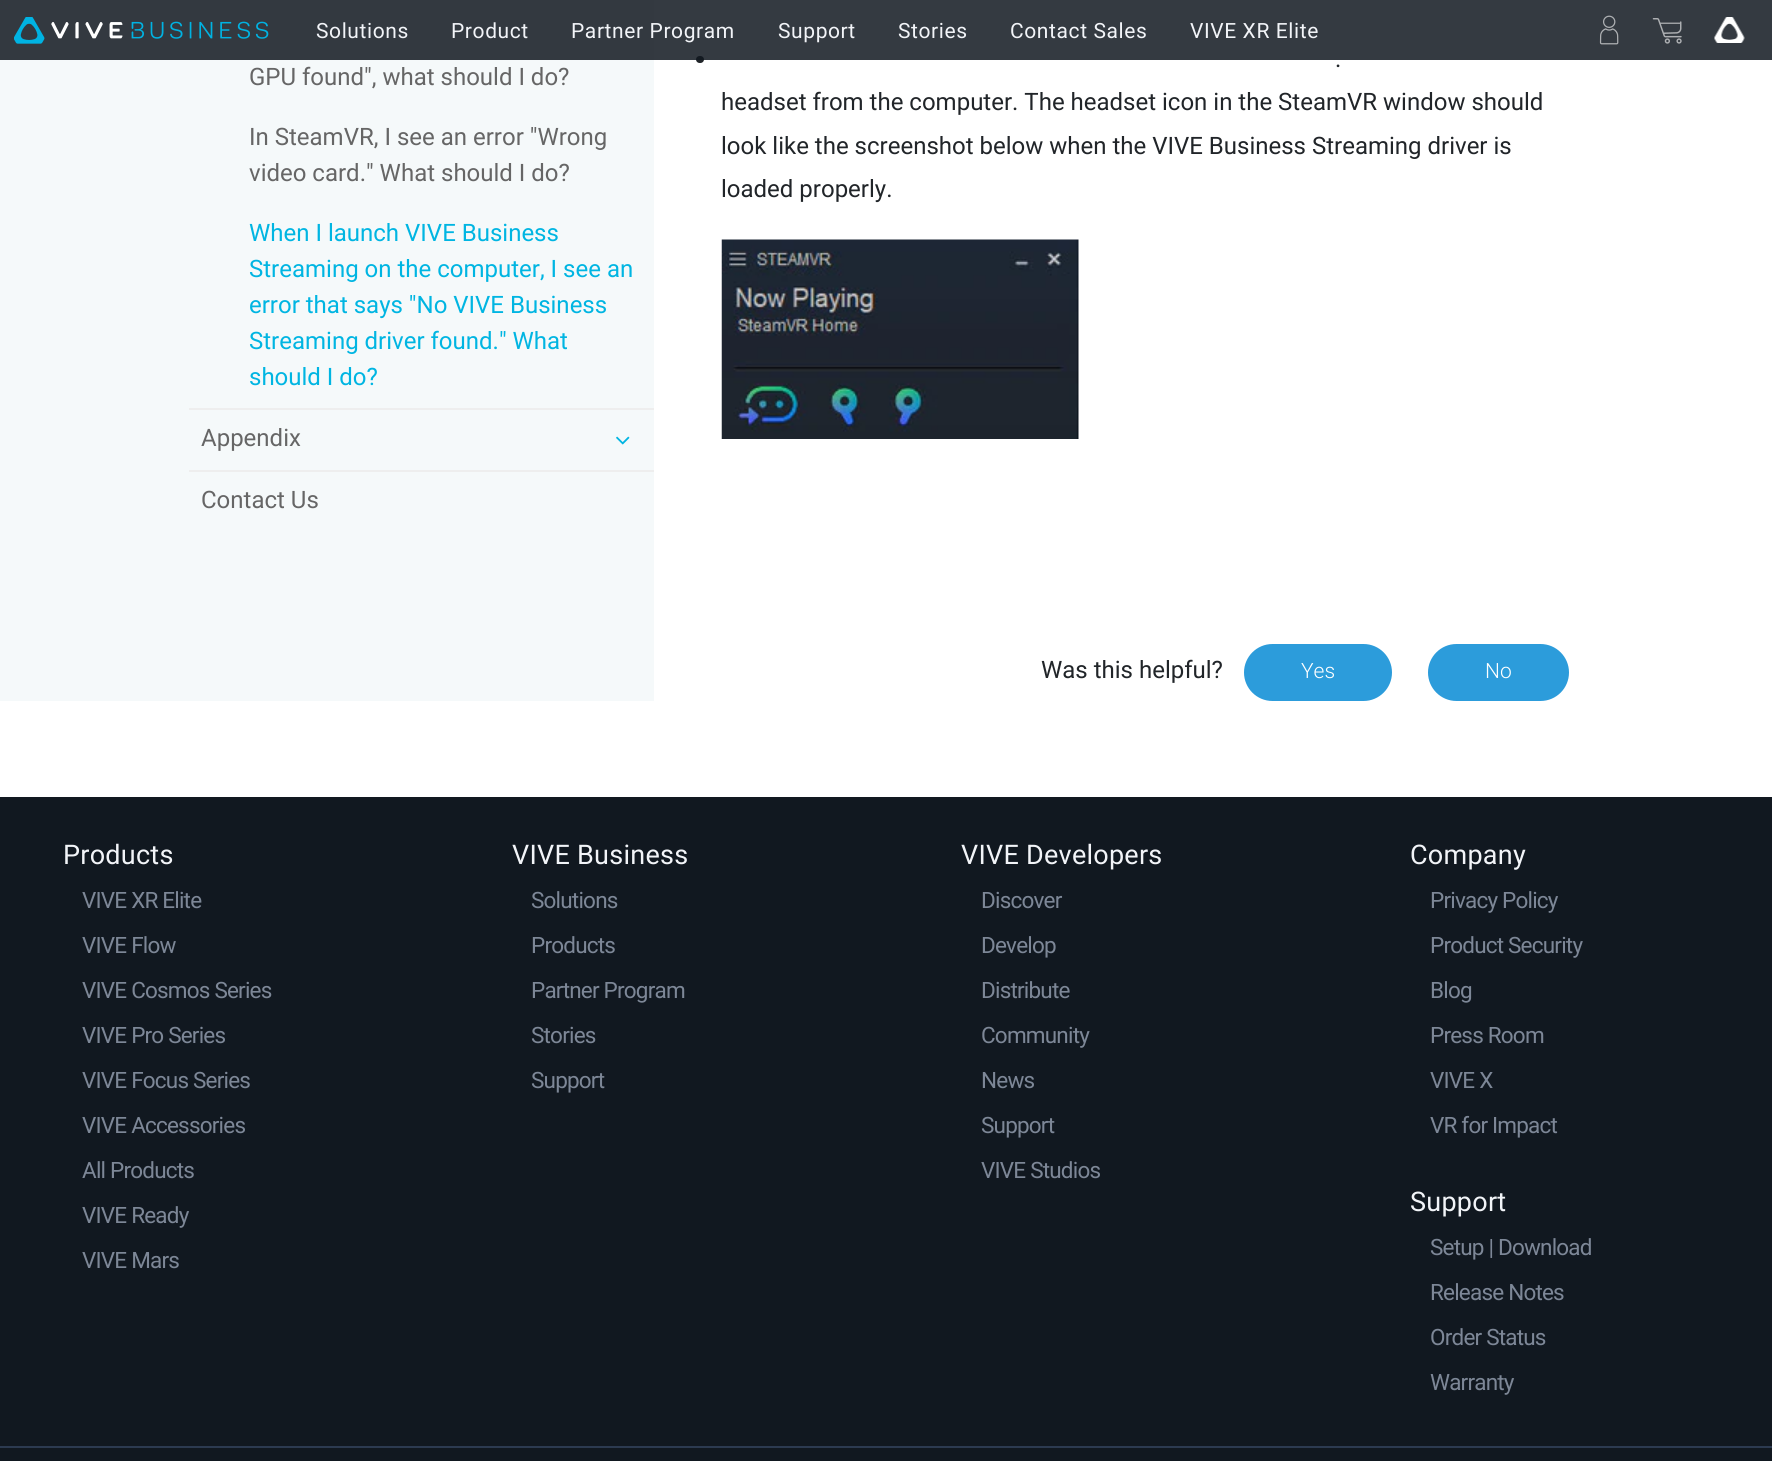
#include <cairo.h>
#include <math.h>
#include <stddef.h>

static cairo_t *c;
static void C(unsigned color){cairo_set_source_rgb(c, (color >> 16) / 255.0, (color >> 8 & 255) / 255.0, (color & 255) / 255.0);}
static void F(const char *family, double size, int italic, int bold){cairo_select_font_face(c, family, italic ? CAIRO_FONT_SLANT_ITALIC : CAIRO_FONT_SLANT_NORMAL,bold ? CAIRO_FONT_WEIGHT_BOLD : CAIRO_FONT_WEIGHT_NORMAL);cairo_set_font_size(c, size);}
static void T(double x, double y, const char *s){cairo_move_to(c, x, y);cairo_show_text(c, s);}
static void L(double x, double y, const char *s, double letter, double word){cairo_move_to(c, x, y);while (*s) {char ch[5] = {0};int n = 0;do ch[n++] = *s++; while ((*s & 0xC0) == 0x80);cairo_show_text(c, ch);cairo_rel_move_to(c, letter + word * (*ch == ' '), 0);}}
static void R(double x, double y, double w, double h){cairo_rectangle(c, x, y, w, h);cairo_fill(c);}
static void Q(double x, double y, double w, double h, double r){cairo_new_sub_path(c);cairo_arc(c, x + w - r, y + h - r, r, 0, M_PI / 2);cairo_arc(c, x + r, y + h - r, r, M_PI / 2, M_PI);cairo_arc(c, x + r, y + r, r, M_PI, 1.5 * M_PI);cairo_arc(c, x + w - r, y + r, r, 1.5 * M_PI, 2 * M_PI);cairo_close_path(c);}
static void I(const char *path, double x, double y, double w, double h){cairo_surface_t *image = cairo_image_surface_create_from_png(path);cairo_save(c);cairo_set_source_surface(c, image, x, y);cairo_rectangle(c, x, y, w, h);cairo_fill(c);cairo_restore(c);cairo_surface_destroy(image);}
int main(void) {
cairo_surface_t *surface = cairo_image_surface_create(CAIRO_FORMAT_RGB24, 1772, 1461);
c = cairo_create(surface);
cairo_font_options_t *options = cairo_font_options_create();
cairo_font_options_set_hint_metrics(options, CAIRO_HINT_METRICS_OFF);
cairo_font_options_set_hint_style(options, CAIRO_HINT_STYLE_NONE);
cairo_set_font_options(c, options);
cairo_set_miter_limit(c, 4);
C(0xffffff);
cairo_paint(c);
C(0xf5f9fa);
R(0,0,654,701);
C(0x212529);
Q(696,56,8,7,3.5);
cairo_fill(c);
cairo_set_source_rgba(c,0.067,0.094,0.125,0.85);
R(0,0,1772,60);
I("1.png",14,17,255,27);
F("Roboto",21,0,0);
C(0xf2f4f8);
L(316,38,"Solutions",.6,0);
L(451,38,"Product",.6,0);
L(571,38,"Partner Program",.6,0);
L(778,38,"Support",.6,0);
L(898,38,"Stories",.6,0);
L(1010,38,"Contact Sales",.6,0);
L(1190,38,"VIVE XR Elite",.6,0);
I("2.png",1599,15,20,30);
I("3.png",1652,18,30,26);
I("4.png",1714,17,31,26);
C(0xeeeeee);
R(189,408,465,2);
F("Roboto",24,0,0);
C(0x666666);
T(249,85,"GPU found\", what should I do?");
T(249,145,"In SteamVR, I see an error \"Wrong");
T(249,181,"video card.\" What should I do?");
C(0x00b5e2);
T(249,241,"When I launch VIVE Business");
T(249,277,"Streaming on the computer, I see an");
T(249,313,"error that says \"No VIVE Business");
T(249,349,"Streaming driver found.\" What");
T(249,385,"should I do?");
C(0xeeeeee);
R(189,470,465,2);
C(0x666666);
T(201,446,"Appendix");
I("5.png",616,436,14,9);
T(201,508,"Contact Us");
C(0x212529);
T(1335,67,".");
T(721,110,"headset from the computer. The headset icon in the SteamVR window should");
T(721,154,"look like the screenshot below when the VIVE Business Streaming driver is");
T(721,197,"loaded properly.");
I("6.png",721,239,358,200);
T(1041,678,"Was this helpful?");
C(0x2c9cdb);
Q(1245,645,146,55,27.5);
cairo_fill_preserve(c);
cairo_stroke(c);
F("Roboto Light",21,0,0);
C(0xffffff);
T(1301,678,"Yes");
C(0x2c9cdb);
Q(1429,645,139,55,27.5);
cairo_fill_preserve(c);
cairo_stroke(c);
C(0xffffff);
T(1485,678,"No");
C(0x111820);
R(0,797,1772,664);
C(0x2c3a50);
R(0,1446,1772,2);
F("Roboto",27,0,0);
C(0xf2f4f8);
L(63,864,"Products",.25,0);
F("Roboto",22.5,0,0);
C(0x7d8797);
L(82,908,"VIVE XR Elite",-.8,0);
L(82,953,"VIVE Flow",-.8,0);
L(82,998,"VIVE Cosmos Series",-.8,0);
L(82,1043,"VIVE Pro Series",-.8,0);
L(82,1088,"VIVE Focus Series",-.8,0);
L(82,1133,"VIVE Accessories",-.8,0);
L(82,1178,"All Products",-.8,0);
L(82,1223,"VIVE Ready",-.8,0);
L(82,1268,"VIVE Mars",-.8,0);
F("Roboto",27,0,0);
C(0xf2f4f8);
L(512,864,"VIVE Business",.25,0);
F("Roboto",22.5,0,0);
C(0x7d8797);
L(531,908,"Solutions",-.8,0);
L(531,953,"Products",-.8,0);
L(531,998,"Partner Program",-.8,0);
L(531,1043,"Stories",-.8,0);
L(531,1088,"Support",-.8,0);
F("Roboto",27,0,0);
C(0xf2f4f8);
L(961,864,"VIVE Developers",.25,0);
F("Roboto",22.5,0,0);
C(0x7d8797);
L(981,908,"Discover",-.8,0);
L(981,953,"Develop",-.8,0);
L(981,998,"Distribute",-.8,0);
L(981,1043,"Community",-.8,0);
L(981,1088,"News",-.8,0);
L(981,1133,"Support",-.8,0);
L(981,1178,"VIVE Studios",-.8,0);
F("Roboto",27,0,0);
C(0xf2f4f8);
L(1410,864,"Company",.25,0);
F("Roboto",22.5,0,0);
C(0x7d8797);
L(1430,908,"Privacy Policy",-.8,0);
L(1430,953,"Product Security",-.8,0);
L(1430,998,"Blog",-.8,0);
L(1430,1043,"Press Room",-.8,0);
L(1430,1088,"VIVE X",-.8,0);
L(1430,1133,"VR for Impact",-.8,0);
F("Roboto",27,0,0);
C(0xf2f4f8);
L(1410,1211,"Support",.25,0);
F("Roboto",22.5,0,0);
C(0x7d8797);
L(1430,1255,"Setup | Download",-.8,0);
L(1430,1300,"Release Notes",-.8,0);
L(1430,1345,"Order Status",-.8,0);
L(1430,1390,"Warranty",-.8,0);
cairo_surface_write_to_png(surface, "o.png");
cairo_font_options_destroy(options);
cairo_destroy(c);
cairo_surface_destroy(surface);
return 0;
}
